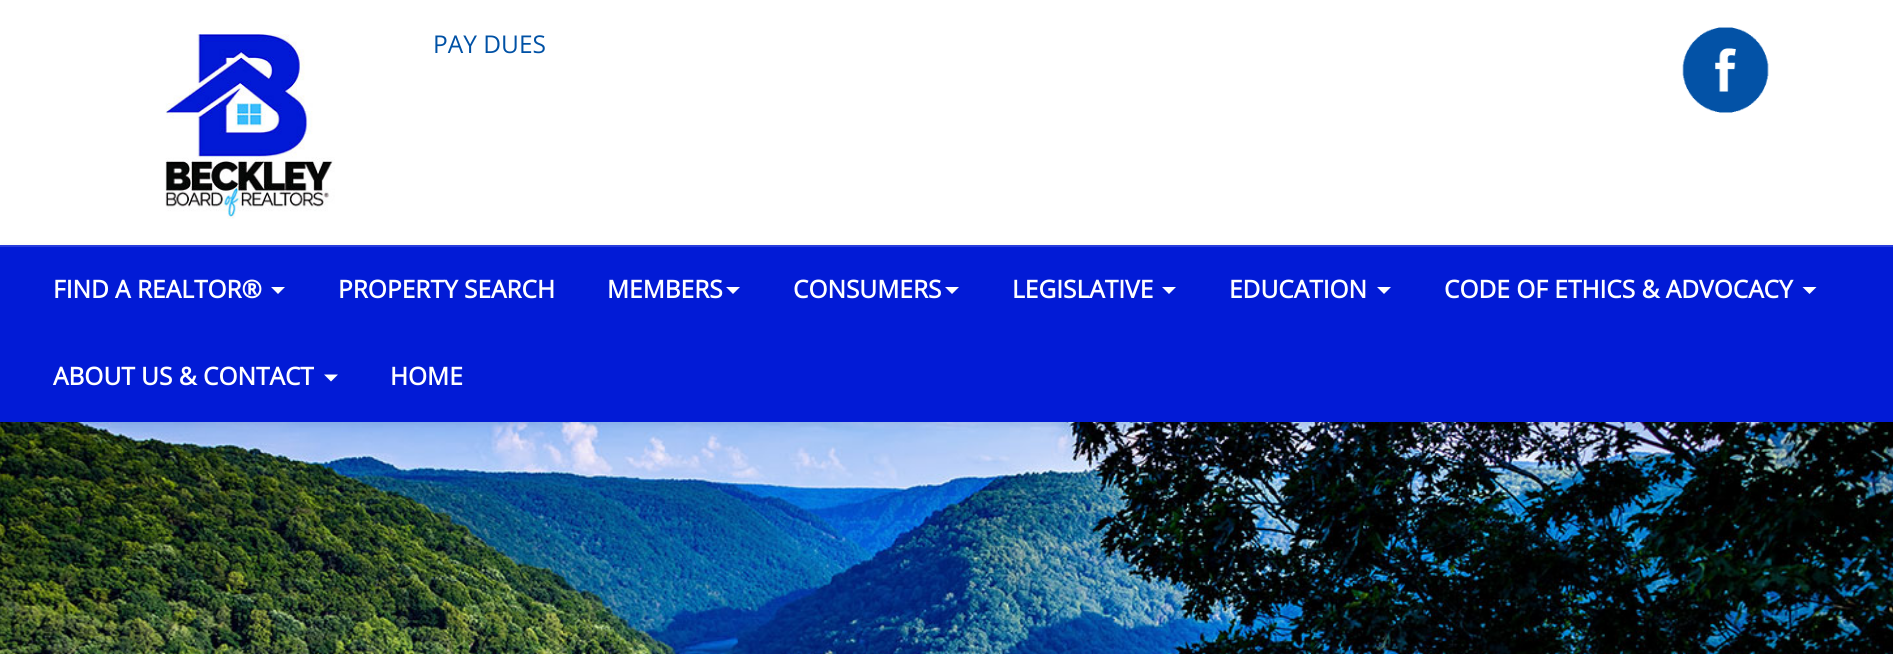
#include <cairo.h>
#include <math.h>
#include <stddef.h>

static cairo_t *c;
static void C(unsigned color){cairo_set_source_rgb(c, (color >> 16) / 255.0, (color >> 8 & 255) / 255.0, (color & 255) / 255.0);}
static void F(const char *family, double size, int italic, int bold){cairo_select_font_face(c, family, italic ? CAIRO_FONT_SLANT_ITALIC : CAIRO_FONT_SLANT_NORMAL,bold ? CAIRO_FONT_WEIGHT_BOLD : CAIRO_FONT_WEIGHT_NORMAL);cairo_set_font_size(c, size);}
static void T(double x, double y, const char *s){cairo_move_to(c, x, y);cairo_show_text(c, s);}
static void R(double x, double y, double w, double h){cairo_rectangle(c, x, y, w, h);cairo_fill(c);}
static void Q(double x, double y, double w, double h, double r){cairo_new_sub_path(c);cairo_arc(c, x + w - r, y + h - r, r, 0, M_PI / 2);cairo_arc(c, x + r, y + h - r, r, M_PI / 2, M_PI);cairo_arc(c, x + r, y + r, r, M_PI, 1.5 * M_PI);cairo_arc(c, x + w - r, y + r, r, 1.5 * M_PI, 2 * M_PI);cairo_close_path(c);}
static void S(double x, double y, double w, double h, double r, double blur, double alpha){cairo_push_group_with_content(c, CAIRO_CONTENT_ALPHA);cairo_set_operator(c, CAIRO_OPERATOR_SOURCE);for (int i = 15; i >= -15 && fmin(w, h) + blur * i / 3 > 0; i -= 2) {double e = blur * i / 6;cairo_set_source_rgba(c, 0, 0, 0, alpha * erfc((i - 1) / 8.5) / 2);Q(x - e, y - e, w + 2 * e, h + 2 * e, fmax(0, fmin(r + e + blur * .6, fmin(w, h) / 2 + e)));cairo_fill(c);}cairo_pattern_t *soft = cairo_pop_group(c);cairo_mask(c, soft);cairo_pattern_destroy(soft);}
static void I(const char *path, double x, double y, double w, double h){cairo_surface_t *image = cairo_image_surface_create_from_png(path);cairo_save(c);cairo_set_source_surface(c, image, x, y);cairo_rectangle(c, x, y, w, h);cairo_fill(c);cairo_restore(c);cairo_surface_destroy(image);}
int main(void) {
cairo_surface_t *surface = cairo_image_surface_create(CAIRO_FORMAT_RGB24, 1893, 654);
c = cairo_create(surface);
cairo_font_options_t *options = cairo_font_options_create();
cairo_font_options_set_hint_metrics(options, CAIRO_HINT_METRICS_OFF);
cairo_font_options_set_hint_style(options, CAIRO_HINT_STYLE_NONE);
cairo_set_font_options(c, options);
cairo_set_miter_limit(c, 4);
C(0xffffff);
cairo_paint(c);
I("1.png",165,34,170,185);
F("Open Sans",24.5,0,0);
C(0x0051a5);
T(433,53,"PAY DUES");
I("2.png",1682,27,87,86);
I("3.png",0,422,1893,232);
C(0x000000);
S(0,247,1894,177,0,4.5,.07);
C(0x021bd6);
R(0,247,1893,175);
C(0x283ddc);
R(0,245,1893,2);
F("Open Sans",24.5,0,1);
C(0xffffff);
T(53,298,"FIND A REALTOR®");
cairo_new_path(c);
cairo_move_to(c,271,287);
cairo_line_to(c,285,287);
cairo_line_to(c,278,294);
cairo_close_path(c);
cairo_fill(c);
T(338,298,"PROPERTY SEARCH");
T(607,298,"MEMBERS");
cairo_new_path(c);
cairo_move_to(c,726,287);
cairo_line_to(c,740,287);
cairo_line_to(c,733,294);
cairo_close_path(c);
cairo_fill(c);
T(793,298,"CONSUMERS");
cairo_new_path(c);
cairo_move_to(c,945,287);
cairo_line_to(c,959,287);
cairo_line_to(c,952,294);
cairo_close_path(c);
cairo_fill(c);
T(1012,298,"LEGISLATIVE");
cairo_new_path(c);
cairo_move_to(c,1162,287);
cairo_line_to(c,1176,287);
cairo_line_to(c,1169,294);
cairo_close_path(c);
cairo_fill(c);
T(1229,298,"EDUCATION");
cairo_new_path(c);
cairo_move_to(c,1377,287);
cairo_line_to(c,1391,287);
cairo_line_to(c,1384,294);
cairo_close_path(c);
cairo_fill(c);
T(1444,298,"CODE OF ETHICS & ADVOCACY");
cairo_new_path(c);
cairo_move_to(c,1802.5,287);
cairo_line_to(c,1816.5,287);
cairo_line_to(c,1809.5,294);
cairo_close_path(c);
cairo_fill(c);
T(53,385,"ABOUT US & CONTACT");
cairo_new_path(c);
cairo_move_to(c,324,374.5);
cairo_line_to(c,338,374.5);
cairo_line_to(c,331,381.5);
cairo_close_path(c);
cairo_fill(c);
T(390,385,"HOME");
cairo_surface_write_to_png(surface, "o.png");
cairo_font_options_destroy(options);
cairo_destroy(c);
cairo_surface_destroy(surface);
return 0;
}
